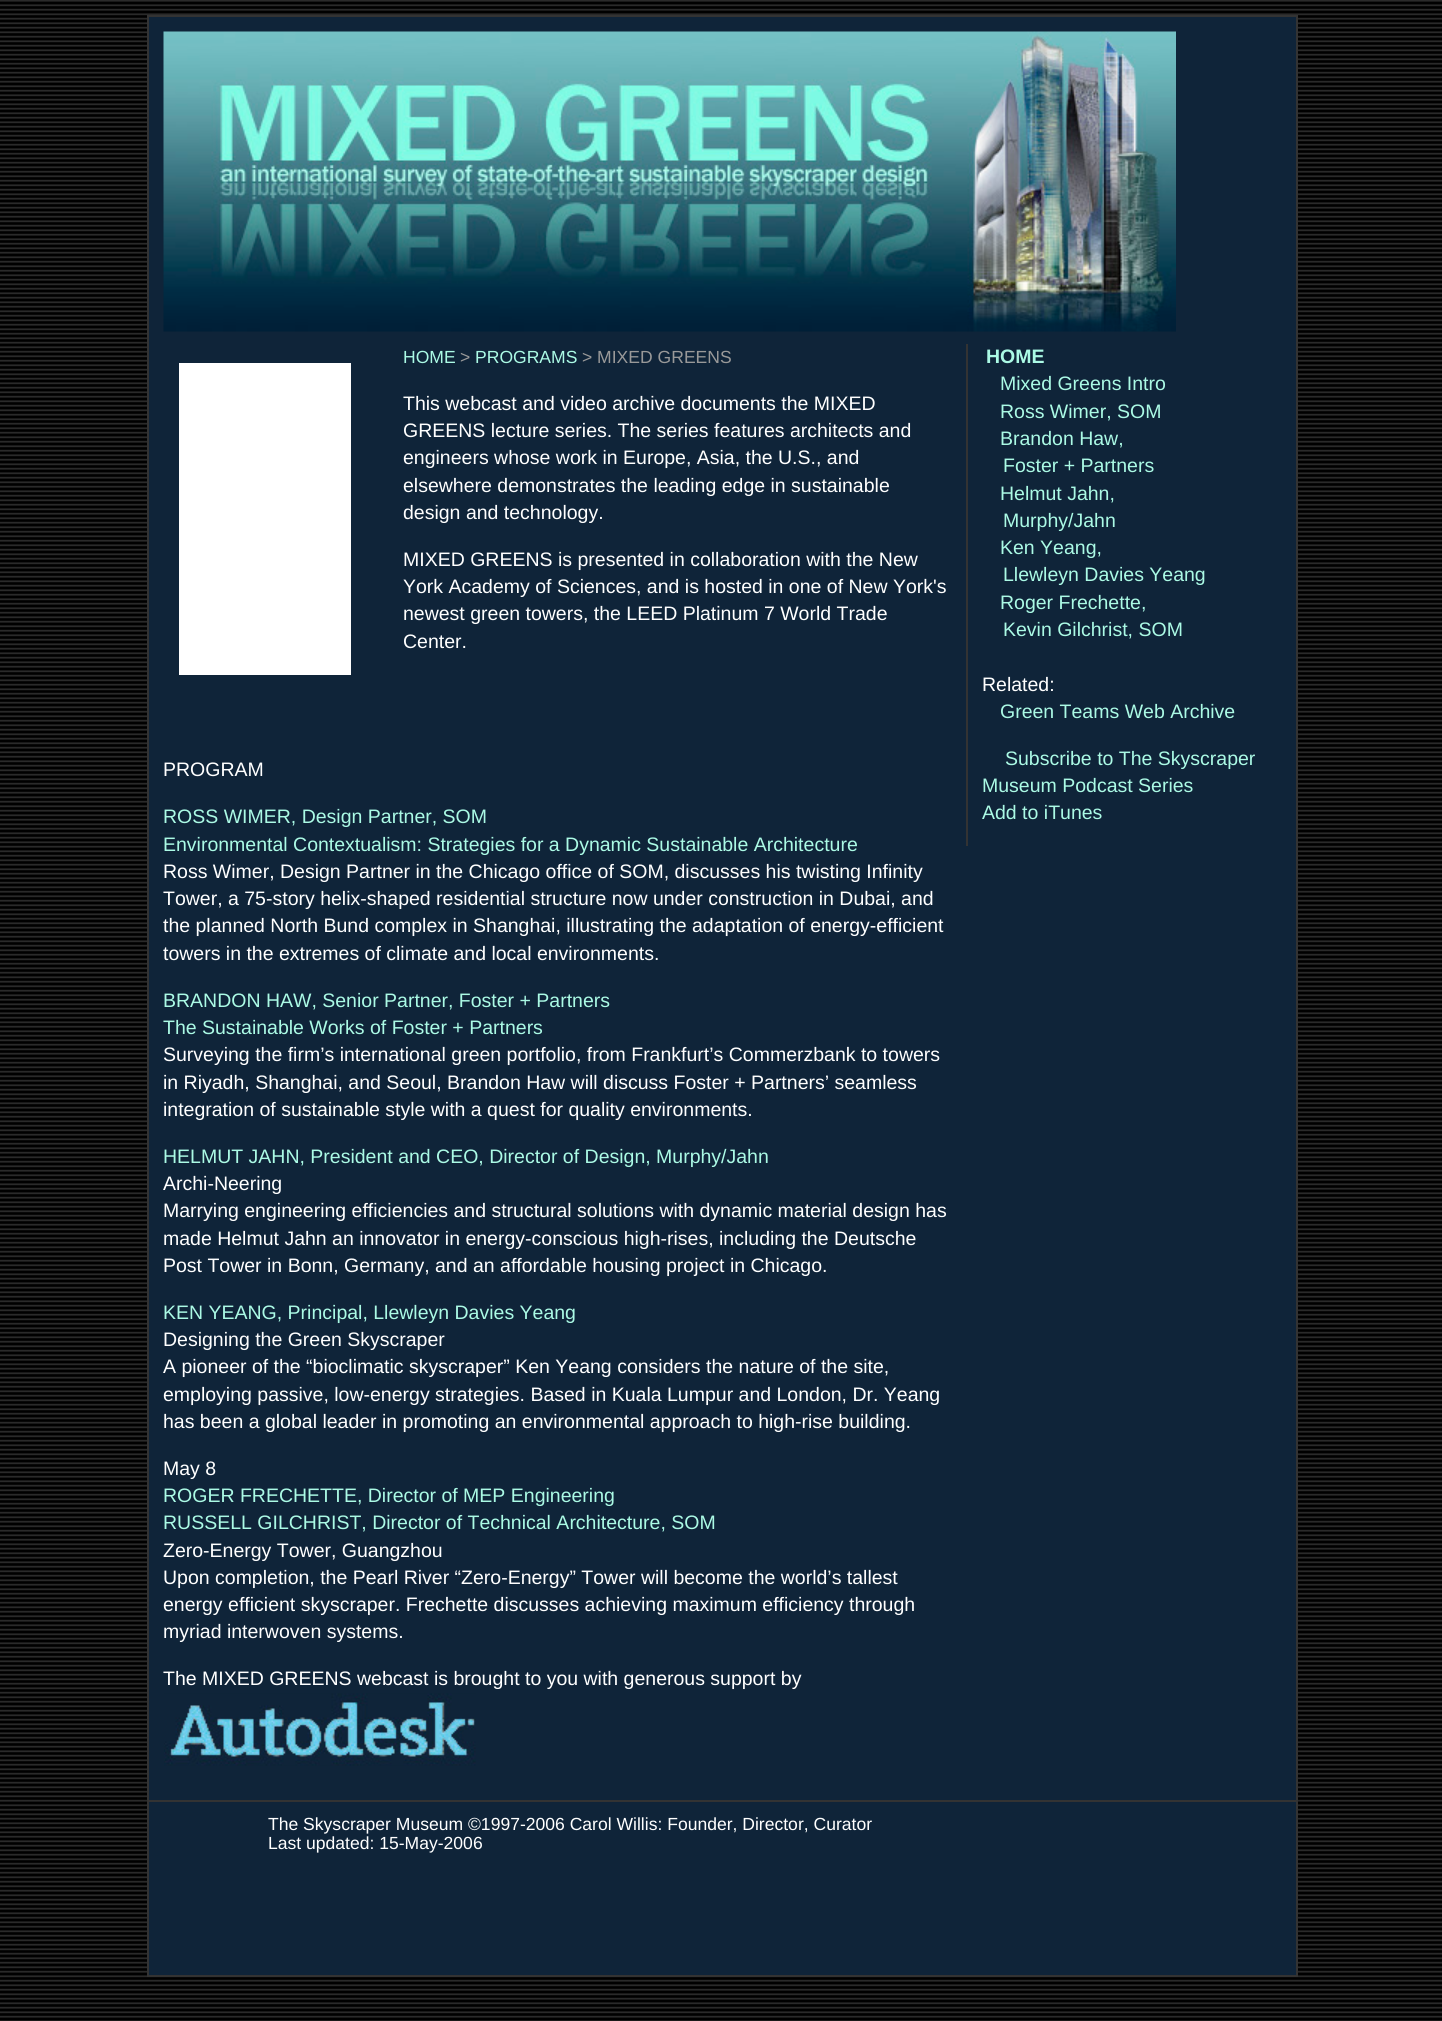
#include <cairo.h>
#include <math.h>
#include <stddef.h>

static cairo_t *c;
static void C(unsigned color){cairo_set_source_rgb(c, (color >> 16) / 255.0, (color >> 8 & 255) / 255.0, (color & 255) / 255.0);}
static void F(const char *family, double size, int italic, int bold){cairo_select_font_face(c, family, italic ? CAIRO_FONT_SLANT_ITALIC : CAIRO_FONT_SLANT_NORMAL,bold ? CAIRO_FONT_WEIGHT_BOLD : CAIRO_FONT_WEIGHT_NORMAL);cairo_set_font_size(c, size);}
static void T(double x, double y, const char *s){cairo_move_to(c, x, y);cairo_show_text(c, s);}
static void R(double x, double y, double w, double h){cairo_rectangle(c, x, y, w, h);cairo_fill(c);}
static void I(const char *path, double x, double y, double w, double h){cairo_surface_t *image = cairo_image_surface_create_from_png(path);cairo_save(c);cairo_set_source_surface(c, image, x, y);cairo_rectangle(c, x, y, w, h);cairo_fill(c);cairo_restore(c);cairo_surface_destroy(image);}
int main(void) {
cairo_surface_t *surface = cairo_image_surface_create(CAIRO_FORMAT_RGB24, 1442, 2021);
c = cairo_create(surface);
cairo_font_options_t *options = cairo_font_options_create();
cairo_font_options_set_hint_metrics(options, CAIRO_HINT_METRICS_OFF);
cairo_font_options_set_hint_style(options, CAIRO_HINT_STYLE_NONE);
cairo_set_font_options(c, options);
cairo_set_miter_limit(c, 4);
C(0xffffff);
cairo_paint(c);
I("1.png",0,0,1442,2021);
C(0x0f2439);
cairo_rectangle(c,148,16,1149,1960);
cairo_fill_preserve(c);
C(0x333333);
cairo_stroke(c);
I("2.png",163,31,1013,301);
F("Liberation Sans",17.55,0,0);
C(0xabfae5);
T(403,363,"HOME");
C(0x999999);
T(460,363,">");
C(0xabfae5);
T(475,363,"PROGRAMS");
C(0x999999);
T(582,363,"> MIXED GREENS");
C(0xffffff);
R(179,363,172,312);
F("Liberation Sans",19.5,0,0);
T(403,410,"This webcast and video archive documents the MIXED");
T(403,437,"GREENS lecture series. The series features architects and");
T(403,464,"engineers whose work in Europe, Asia, the U.S., and");
T(403,492,"elsewhere demonstrates the leading edge in sustainable");
T(403,519,"design and technology.");
T(403,566,"MIXED GREENS is presented in collaboration with the New");
T(403,593,"York Academy of Sciences, and is hosted in one of New York's");
T(403,620,"newest green towers, the LEED Platinum 7 World Trade");
T(403,648,"Center.");
T(163,776,"PROGRAM");
C(0xabfae5);
T(163,823,"ROSS WIMER, Design Partner, SOM");
T(163,851,"Environmental Contextualism: Strategies for a Dynamic Sustainable Architecture");
C(0xffffff);
T(163,878,"Ross Wimer, Design Partner in the Chicago office of SOM, discusses his twisting Infinity");
T(163,905,"Tower, a 75-story helix-shaped residential structure now under construction in Dubai, and");
T(163,932,"the planned North Bund complex in Shanghai, illustrating the adaptation of energy-efficient");
T(163,960,"towers in the extremes of climate and local environments.");
C(0xabfae5);
T(163,1007,"BRANDON HAW, Senior Partner, Foster + Partners");
T(163,1034,"The Sustainable Works of Foster + Partners");
C(0xffffff);
T(163,1061,"Surveying the firm’s international green portfolio, from Frankfurt’s Commerzbank to towers");
T(163,1089,"in Riyadh, Shanghai, and Seoul, Brandon Haw will discuss Foster + Partners’ seamless");
T(163,1116,"integration of sustainable style with a quest for quality environments.");
C(0xabfae5);
T(163,1163,"HELMUT JAHN, President and CEO, Director of Design, Murphy/Jahn");
C(0xffffff);
T(163,1190,"Archi-Neering");
T(163,1217,"Marrying engineering efficiencies and structural solutions with dynamic material design has");
T(163,1245,"made Helmut Jahn an innovator in energy-conscious high-rises, including the Deutsche");
T(163,1272,"Post Tower in Bonn, Germany, and an affordable housing project in Chicago.");
C(0xabfae5);
T(163,1319,"KEN YEANG, Principal, Llewleyn Davies Yeang");
C(0xffffff);
T(163,1346,"Designing the Green Skyscraper");
T(163,1373,"A pioneer of the “bioclimatic skyscraper” Ken Yeang considers the nature of the site,");
T(163,1401,"employing passive, low-energy strategies. Based in Kuala Lumpur and London, Dr. Yeang");
T(163,1428,"has been a global leader in promoting an environmental approach to high-rise building.");
T(163,1475,"May 8");
C(0xabfae5);
T(163,1502,"ROGER FRECHETTE, Director of MEP Engineering");
T(163,1529,"RUSSELL GILCHRIST, Director of Technical Architecture, SOM");
C(0xffffff);
T(163,1557,"Zero-Energy Tower, Guangzhou");
T(163,1584,"Upon completion, the Pearl River “Zero-Energy” Tower will become the world’s tallest");
T(163,1611,"energy efficient skyscraper. Frechette discusses achieving maximum efficiency through");
T(163,1638,"myriad interwoven systems.");
T(163,1685,"The MIXED GREENS webcast is brought to you with generous support by");
I("3.png",164,1693,312,73);
C(0x333333);
R(966,344,2,502);
F("Liberation Sans",19.5,0,1);
C(0xabfae5);
T(986,363,"HOME");
F("Liberation Sans",19.5,0,0);
T(1000,390,"Mixed Greens Intro");
T(1000,418,"Ross Wimer, SOM");
T(1000,445,"Brandon Haw,");
T(1003,472,"Foster + Partners");
T(1000,500,"Helmut Jahn,");
T(1003,527,"Murphy/Jahn");
T(1000,554,"Ken Yeang,");
T(1003,581,"Llewleyn Davies Yeang");
T(1000,609,"Roger Frechette,");
T(1003,636,"Kevin Gilchrist, SOM");
C(0xffffff);
T(982,691,"Related:");
C(0xabfae5);
T(1000,718,"Green Teams Web Archive");
T(1005,765,"Subscribe to The Skyscraper");
T(982,792,"Museum Podcast Series");
T(982,819,"Add to iTunes");
C(0x333333);
R(149,1800,1147,2);
F("Liberation Sans",17.55,0,0);
C(0xffffff);
T(268,1830,"The Skyscraper Museum ©1997-2006 Carol Willis: Founder, Director, Curator");
T(268,1849,"Last updated: 15-May-2006");
cairo_surface_write_to_png(surface, "o.png");
cairo_font_options_destroy(options);
cairo_destroy(c);
cairo_surface_destroy(surface);
return 0;
}
